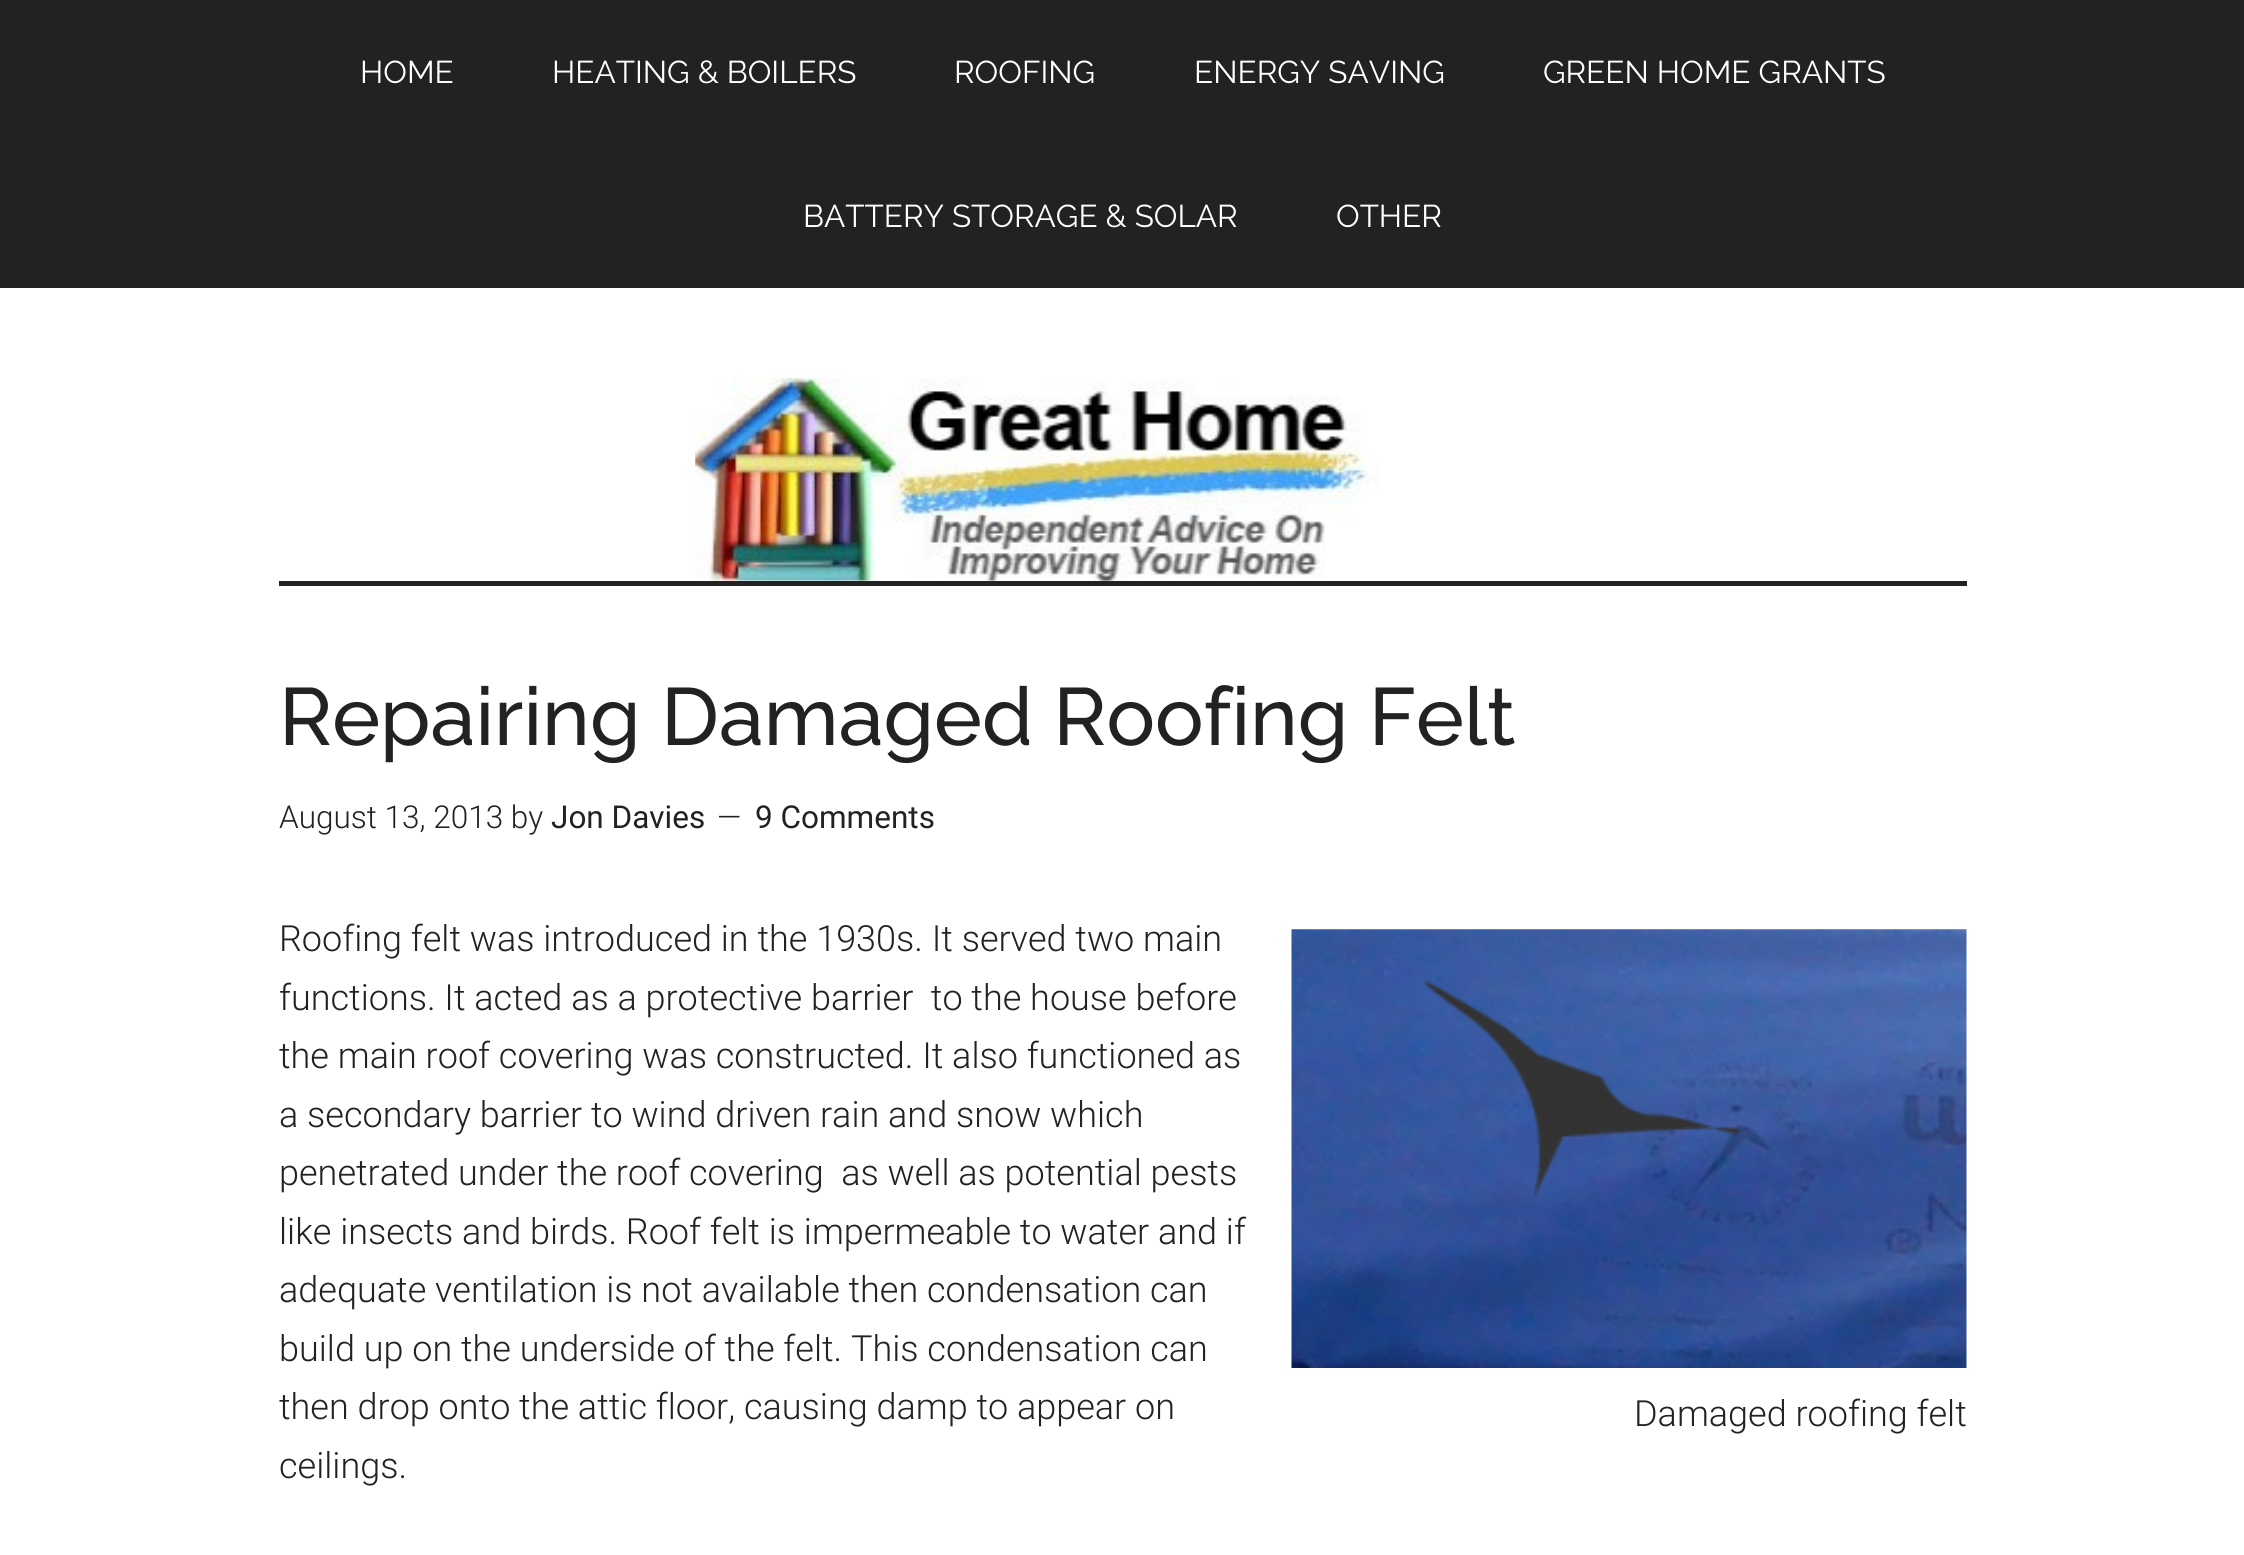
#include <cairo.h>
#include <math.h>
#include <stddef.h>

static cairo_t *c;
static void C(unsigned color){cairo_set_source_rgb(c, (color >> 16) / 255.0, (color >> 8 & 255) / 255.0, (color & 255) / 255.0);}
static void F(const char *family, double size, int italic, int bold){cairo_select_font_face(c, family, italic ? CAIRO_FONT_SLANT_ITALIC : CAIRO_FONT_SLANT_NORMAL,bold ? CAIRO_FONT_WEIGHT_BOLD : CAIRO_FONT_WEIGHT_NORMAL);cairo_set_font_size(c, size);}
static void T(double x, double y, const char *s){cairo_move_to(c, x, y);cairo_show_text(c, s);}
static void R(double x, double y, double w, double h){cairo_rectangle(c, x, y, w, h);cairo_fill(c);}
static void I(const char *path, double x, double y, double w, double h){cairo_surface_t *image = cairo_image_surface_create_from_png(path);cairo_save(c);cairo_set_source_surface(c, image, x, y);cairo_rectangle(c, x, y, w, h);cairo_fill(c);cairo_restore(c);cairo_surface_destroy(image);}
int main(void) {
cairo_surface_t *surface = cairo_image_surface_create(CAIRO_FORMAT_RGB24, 2244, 1555);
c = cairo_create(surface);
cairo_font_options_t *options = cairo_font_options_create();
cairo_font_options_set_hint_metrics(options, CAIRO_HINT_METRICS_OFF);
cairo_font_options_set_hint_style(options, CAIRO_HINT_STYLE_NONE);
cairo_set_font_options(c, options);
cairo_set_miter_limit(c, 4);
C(0xffffff);
cairo_paint(c);
C(0x222222);
R(0,0,2244,288);
F("Raleway",31.5,0,0);
C(0xffffff);
T(360,83,"HOME");
T(552,83,"HEATING & BOILERS");
T(954,83,"ROOFING");
T(1194,83,"ENERGY SAVING");
T(1543,83,"GREEN HOME GRANTS");
T(803,227,"BATTERY STORAGE & SOLAR");
T(1336,227,"OTHER");
C(0x222222);
R(279,581,1688,5);
I("1.png",695,378,684,203);
F("Raleway Medium",81,0,0);
T(279,745,"Repairing Damaged Roofing Felt");
F("Roboto Light",31.5,0,0);
T(279,828,"August 13, 2013 by");
F("Roboto",31.5,0,0);
T(551,828,"Jon Davies");
F("Roboto Light",31.5,0,0);
T(717,828,"—");
F("Roboto",31.5,0,0);
T(755,828,"9 Comments");
F("Roboto Light",36,0,0);
T(279,951,"Roofing felt was introduced in the 1930s. It served two main");
T(279,1010,"functions. It acted as a protective barrier  to the house before");
T(279,1068,"the main roof covering was constructed. It also functioned as");
T(279,1127,"a secondary barrier to wind driven rain and snow which");
T(279,1185,"penetrated under the roof covering  as well as potential pests");
T(279,1244,"like insects and birds. Roof felt is impermeable to water and if");
T(279,1302,"adequate ventilation is not available then condensation can");
T(279,1361,"build up on the underside of the felt. This condensation can");
T(279,1419,"then drop onto the attic floor, causing damp to appear on");
T(279,1478,"ceilings.");
I("2.png",1291,929,676,439);
T(1634,1426,"Damaged roofing felt");
cairo_surface_write_to_png(surface, "o.png");
cairo_font_options_destroy(options);
cairo_destroy(c);
cairo_surface_destroy(surface);
return 0;
}
